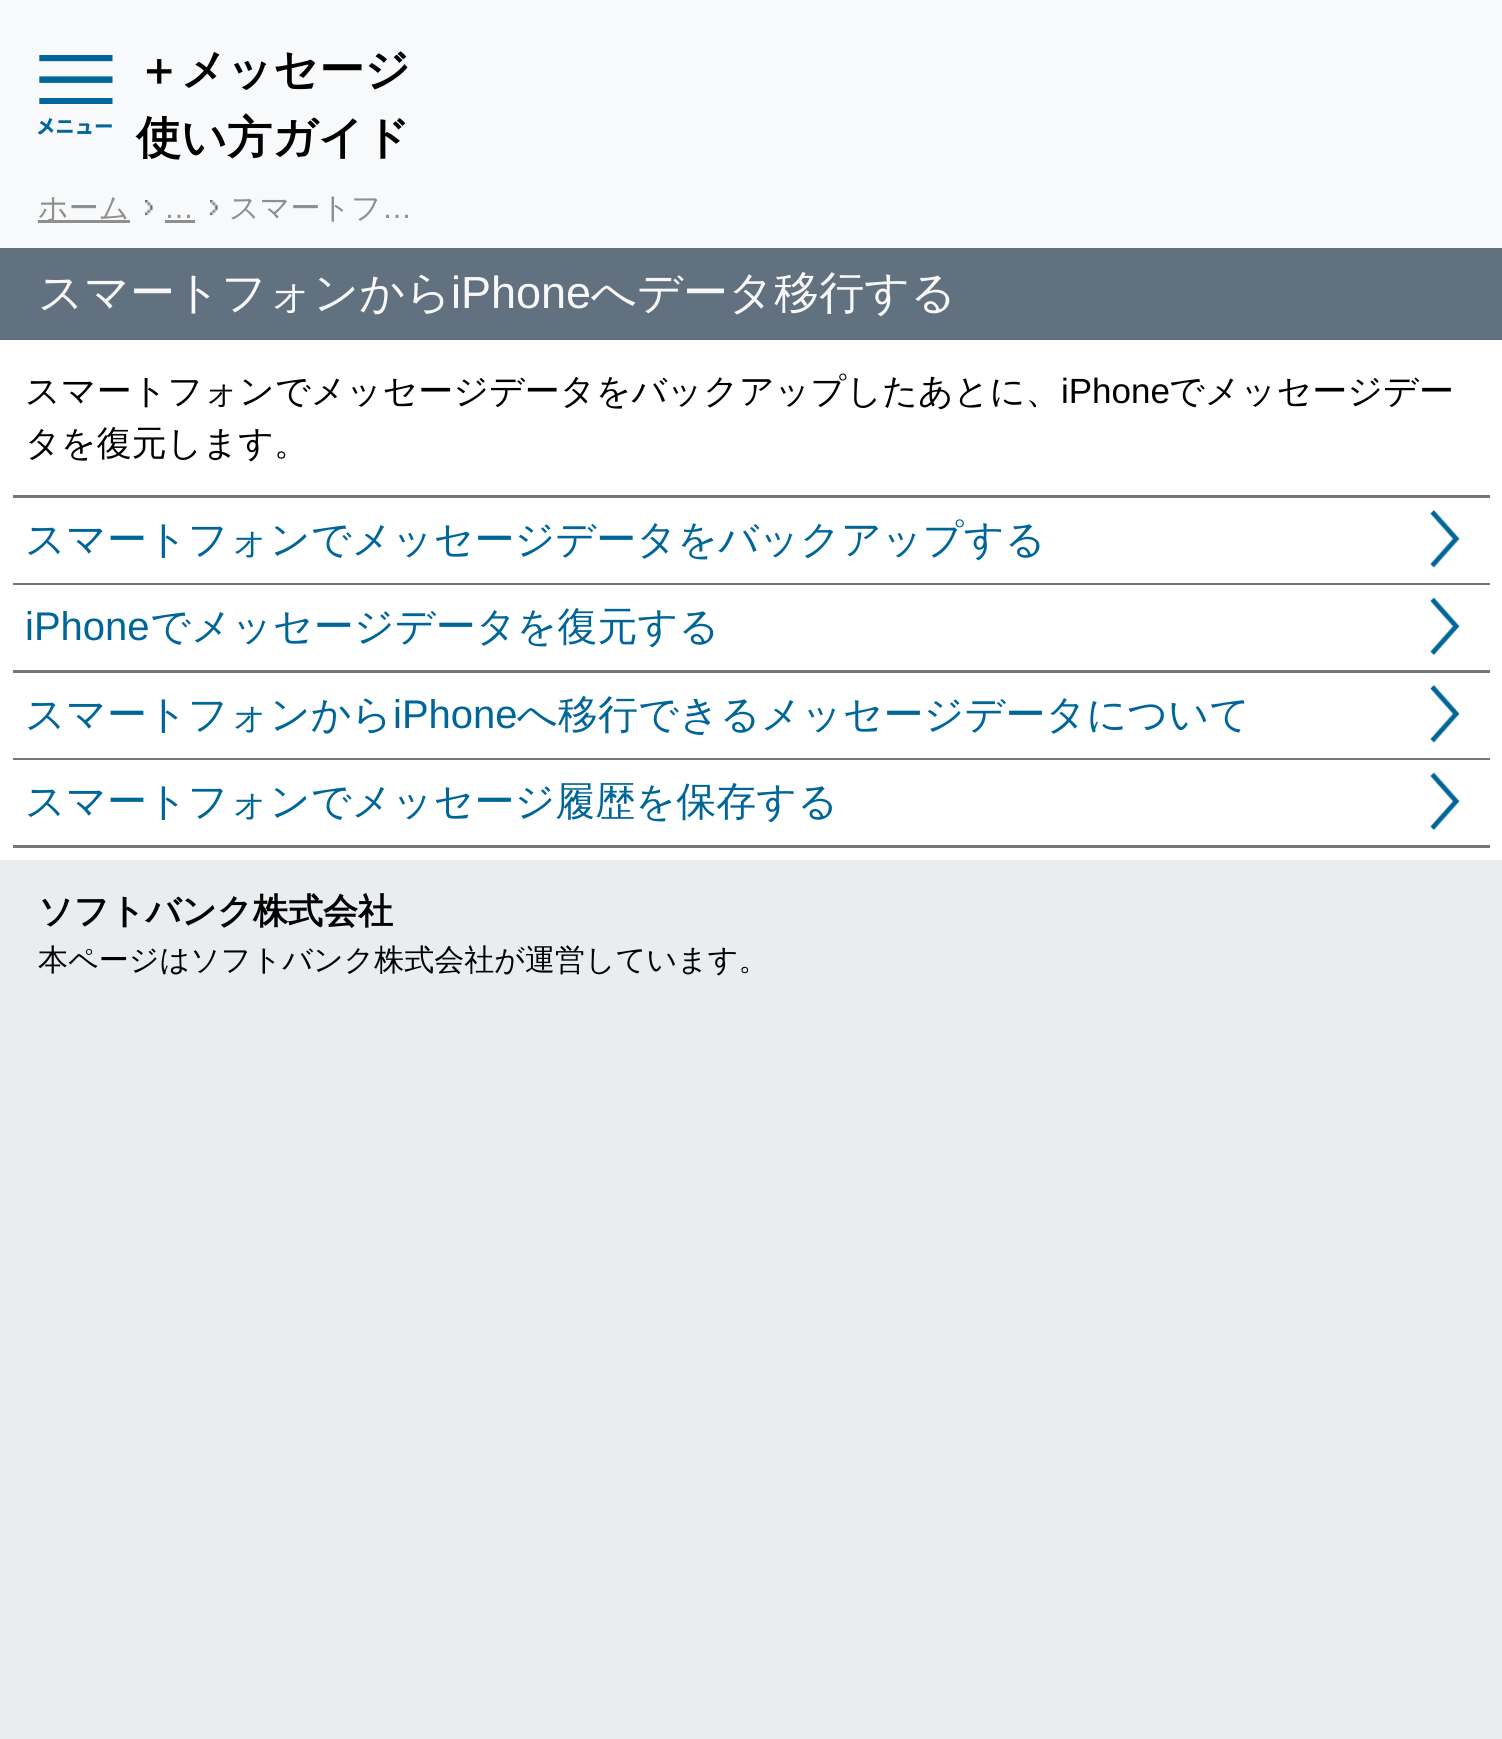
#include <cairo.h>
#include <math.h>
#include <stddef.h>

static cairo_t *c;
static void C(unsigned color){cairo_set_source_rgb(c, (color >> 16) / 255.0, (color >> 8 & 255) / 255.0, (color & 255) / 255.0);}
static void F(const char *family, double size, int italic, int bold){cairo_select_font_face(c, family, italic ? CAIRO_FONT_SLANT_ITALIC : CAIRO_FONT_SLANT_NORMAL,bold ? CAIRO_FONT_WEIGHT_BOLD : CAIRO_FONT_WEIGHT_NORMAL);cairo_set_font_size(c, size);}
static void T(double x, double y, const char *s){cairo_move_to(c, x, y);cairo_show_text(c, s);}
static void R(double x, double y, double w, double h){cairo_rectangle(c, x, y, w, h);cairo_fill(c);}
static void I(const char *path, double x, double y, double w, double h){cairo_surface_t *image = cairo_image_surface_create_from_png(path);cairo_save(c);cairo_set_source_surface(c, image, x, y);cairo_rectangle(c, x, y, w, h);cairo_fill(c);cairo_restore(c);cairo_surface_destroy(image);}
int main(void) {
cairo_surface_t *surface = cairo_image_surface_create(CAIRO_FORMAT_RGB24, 1502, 1739);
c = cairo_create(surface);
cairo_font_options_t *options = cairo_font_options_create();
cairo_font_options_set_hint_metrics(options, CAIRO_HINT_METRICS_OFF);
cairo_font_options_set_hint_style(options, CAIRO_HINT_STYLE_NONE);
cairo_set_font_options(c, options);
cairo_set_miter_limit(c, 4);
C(0xe9edf0);
cairo_paint(c);
C(0xf7f9fa);
R(0,0,1502,248);
I("1.png",37,55,76,80);
F("WenQuanYi Zen Hei",45,0,1);
C(0x000000);
T(136,85,"＋メッセージ");
T(136,153,"使い方ガイド");
C(0x8f8f8f);
R(38,220,92,3);
F("WenQuanYi Zen Hei Medium",30,0,0);
T(38,218,"ホーム");
I("2.png",145,200,8,15);
I("2.png",210,200,8,15);
F("Liberation Sans",30,0,0);
T(164,218,"…");
R(165,220,30,3);
F("WenQuanYi Zen Hei Medium",30,0,0);
T(229,218,"スマートフ");
F("Liberation Sans",30,0,0);
T(382,218,"…");
C(0xffffff);
R(0,340,1502,520);
C(0x627180);
R(0,248,1502,92);
F("WenQuanYi Zen Hei Medium",45,0,0);
C(0xf8f8f8);
T(38,308,"スマートフォンから");
F("Liberation Sans",45,0,0);
T(451,308,"iPhone");
F("WenQuanYi Zen Hei Medium",45,0,0);
T(591,308,"へデータ移行する");
F("WenQuanYi Zen Hei Medium",35,0,0);
C(0x000000);
T(25,403,"スマートフォンでメッセージデータをバックアップしたあとに、");
F("Liberation Sans",35,0,0);
T(1061,403,"iPhone");
F("WenQuanYi Zen Hei Medium",35,0,0);
T(1169,403,"でメッセージデー");
T(25,455,"タを復元します。");
I("3.png",1430,510,30,58);
C(0x777777);
R(13,495,1477,3);
R(13,583,1477,2);
F("WenQuanYi Zen Hei Medium",40,0,0);
C(0x006699);
T(25,553,"スマートフォンでメッセージデータをバックアップする");
I("4.png",1430,597,30,58);
C(0x777777);
R(13,670,1477,3);
F("Liberation Sans",40,0,0);
C(0x006699);
T(25,640,"iPhone");
F("WenQuanYi Zen Hei Medium",40,0,0);
T(150,640,"でメッセージデータを復元する");
I("3.png",1430,685,30,58);
C(0x777777);
R(13,758,1477,2);
C(0x006699);
T(25,728,"スマートフォンから");
F("Liberation Sans",40,0,0);
T(393,728,"iPhone");
F("WenQuanYi Zen Hei Medium",40,0,0);
T(517,728,"へ移行できるメッセージデータについて");
I("5.png",1430,772,30,58);
C(0x777777);
R(13,845,1477,3);
C(0x006699);
T(25,815,"スマートフォンでメッセージ履歴を保存する");
F("WenQuanYi Zen Hei",35,0,1);
C(0x000000);
T(38,923,"ソフトバンク株式会社");
F("WenQuanYi Zen Hei Medium",30,0,0);
T(38,970,"本ページはソフトバンク株式会社が運営しています。");
cairo_surface_write_to_png(surface, "o.png");
cairo_font_options_destroy(options);
cairo_destroy(c);
cairo_surface_destroy(surface);
return 0;
}
